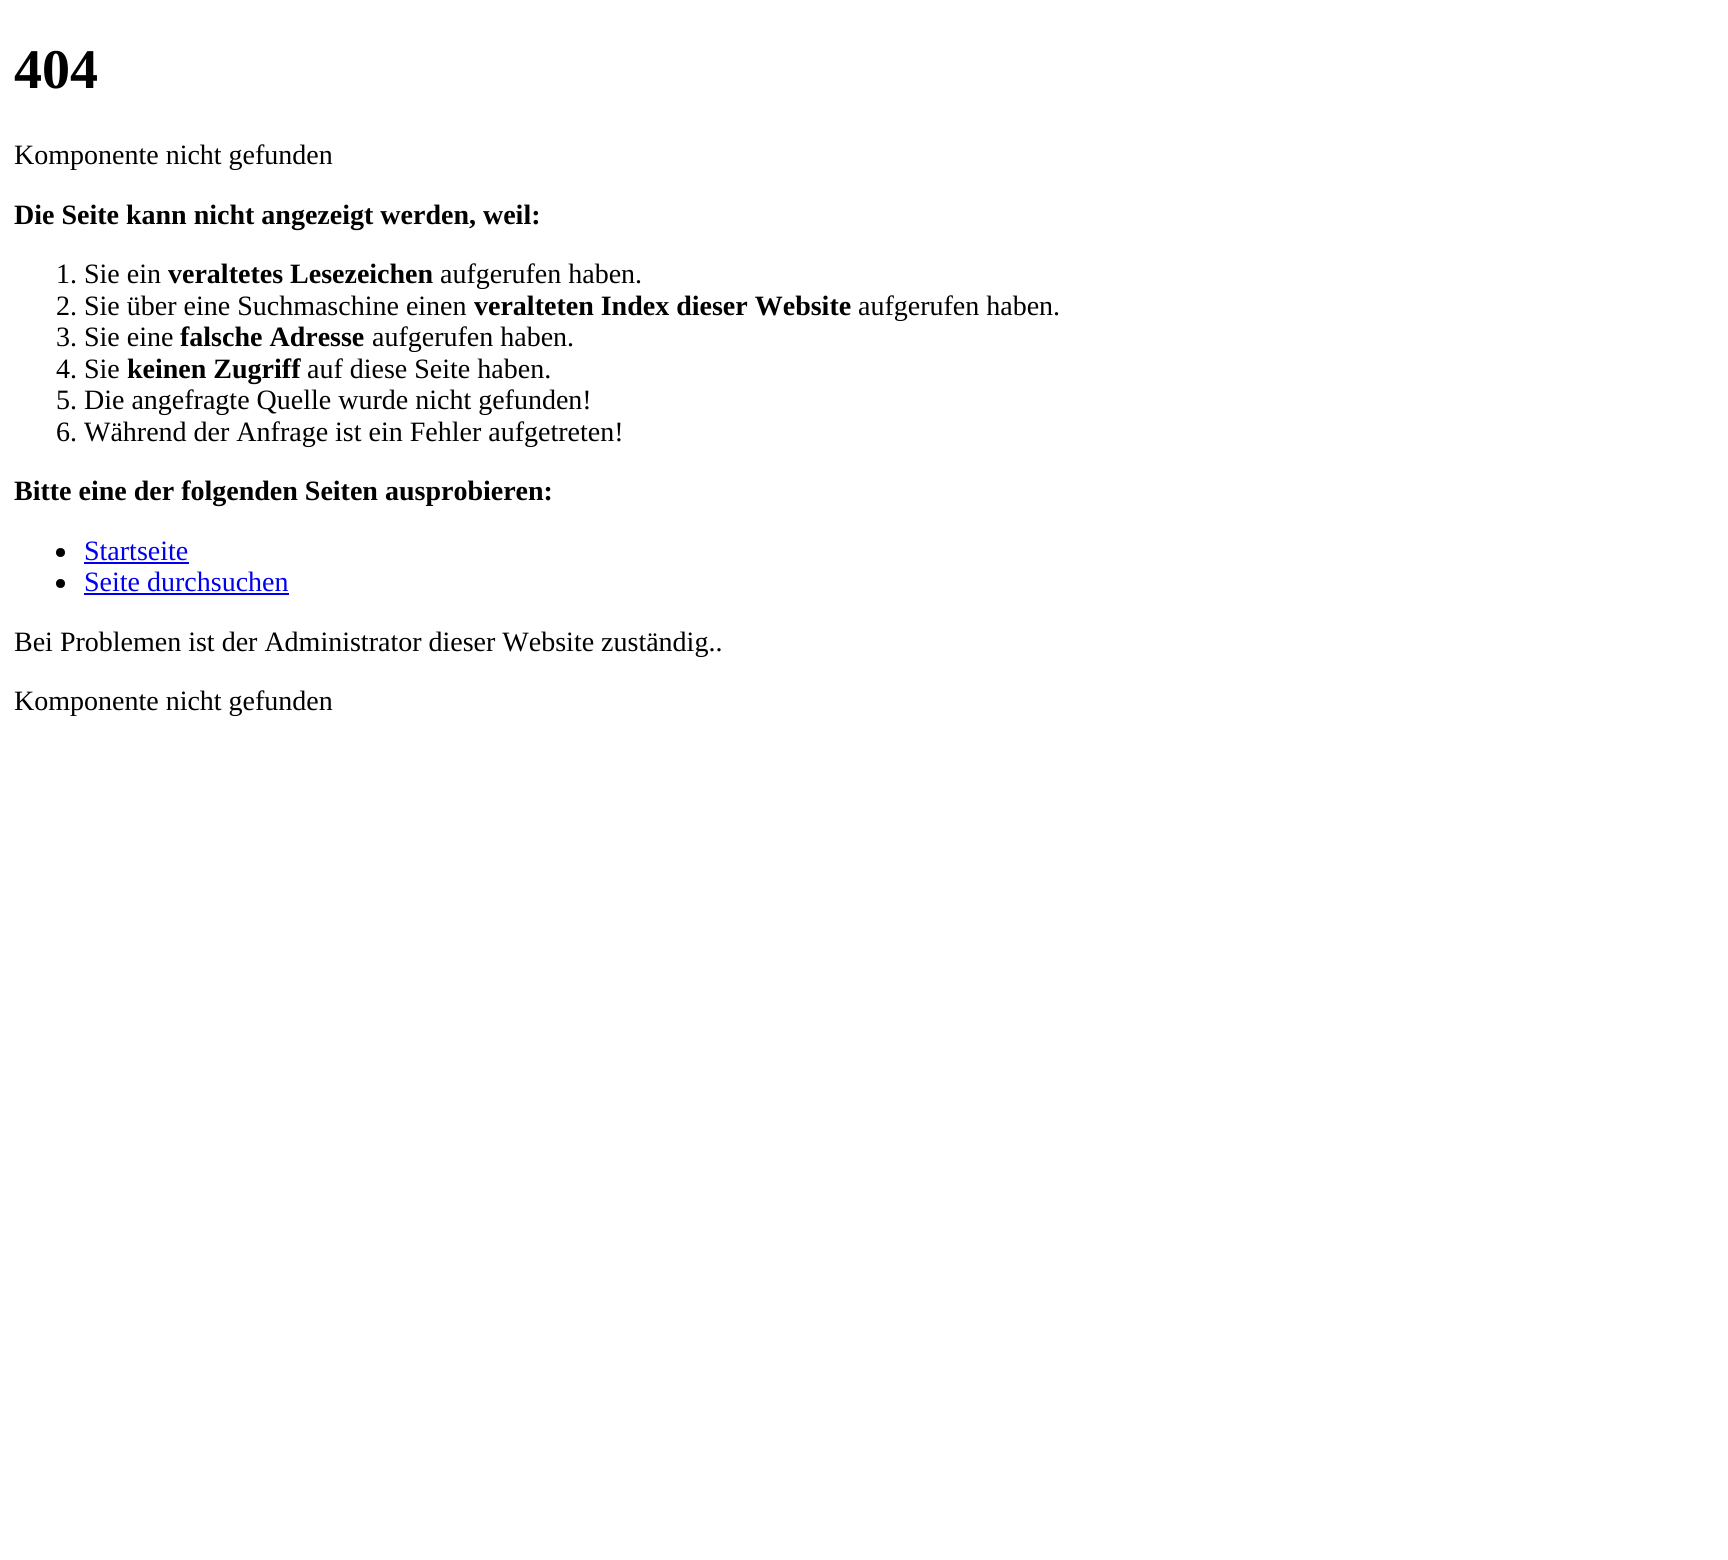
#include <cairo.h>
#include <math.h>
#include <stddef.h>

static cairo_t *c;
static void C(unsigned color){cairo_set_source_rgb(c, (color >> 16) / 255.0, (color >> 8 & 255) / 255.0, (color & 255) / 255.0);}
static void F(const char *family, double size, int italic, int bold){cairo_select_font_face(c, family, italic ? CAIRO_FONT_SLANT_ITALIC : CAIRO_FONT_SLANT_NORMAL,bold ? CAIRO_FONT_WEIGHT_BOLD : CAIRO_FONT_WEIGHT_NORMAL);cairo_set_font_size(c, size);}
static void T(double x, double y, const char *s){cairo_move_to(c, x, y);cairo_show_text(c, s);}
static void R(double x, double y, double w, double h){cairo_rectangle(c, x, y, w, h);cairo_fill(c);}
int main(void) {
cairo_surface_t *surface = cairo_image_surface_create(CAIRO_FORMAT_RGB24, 1728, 1560);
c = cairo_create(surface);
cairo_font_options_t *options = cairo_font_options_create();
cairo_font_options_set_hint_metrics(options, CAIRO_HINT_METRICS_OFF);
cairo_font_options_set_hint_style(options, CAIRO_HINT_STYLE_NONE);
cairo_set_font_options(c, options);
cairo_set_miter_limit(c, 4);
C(0xffffff);
cairo_paint(c);
F("Liberation Serif",56,0,1);
C(0x000000);
T(14,88,"404");
F("Liberation Serif",28,0,0);
T(14,164,"Komponente nicht gefunden");
F("Liberation Serif",28,0,1);
T(14,224,"Die Seite kann nicht angezeigt werden, weil:");
F("Liberation Serif",28,0,0);
T(56,283,"1. Sie ein");
F("Liberation Serif",28,0,1);
T(168,283,"veraltetes Lesezeichen");
F("Liberation Serif",28,0,0);
T(440,283,"aufgerufen haben.");
T(56,315,"2. Sie über eine Suchmaschine einen");
F("Liberation Serif",28,0,1);
T(474,315,"veralteten Index dieser Website");
F("Liberation Serif",28,0,0);
T(858,315,"aufgerufen haben.");
T(56,346,"3. Sie eine");
F("Liberation Serif",28,0,1);
T(180,346,"falsche Adresse");
F("Liberation Serif",28,0,0);
T(372,346,"aufgerufen haben.");
T(56,378,"4. Sie");
F("Liberation Serif",28,0,1);
T(127,378,"keinen Zugriff");
F("Liberation Serif",28,0,0);
T(307,378,"auf diese Seite haben.");
T(56,409,"5. Die angefragte Quelle wurde nicht gefunden!");
T(56,441,"6. Während der Anfrage ist ein Fehler aufgetreten!");
F("Liberation Serif",28,0,1);
T(14,500,"Bitte eine der folgenden Seiten ausprobieren:");
cairo_new_path(c);
cairo_arc(c,60.5,552.5,4.5,0,2 * M_PI);
cairo_fill(c);
F("Liberation Serif",28,0,0);
C(0x0000ee);
T(84,560,"Startseite");
R(84,562,105,2);
C(0x000000);
cairo_new_path(c);
cairo_arc(c,60.5,583.5,4.5,0,2 * M_PI);
cairo_fill(c);
C(0x0000ee);
T(84,591,"Seite durchsuchen");
R(84,593,205,2);
C(0x000000);
T(14,651,"Bei Problemen ist der Administrator dieser Website zuständig..");
T(14,710,"Komponente nicht gefunden");
cairo_surface_write_to_png(surface, "o.png");
cairo_font_options_destroy(options);
cairo_destroy(c);
cairo_surface_destroy(surface);
return 0;
}
